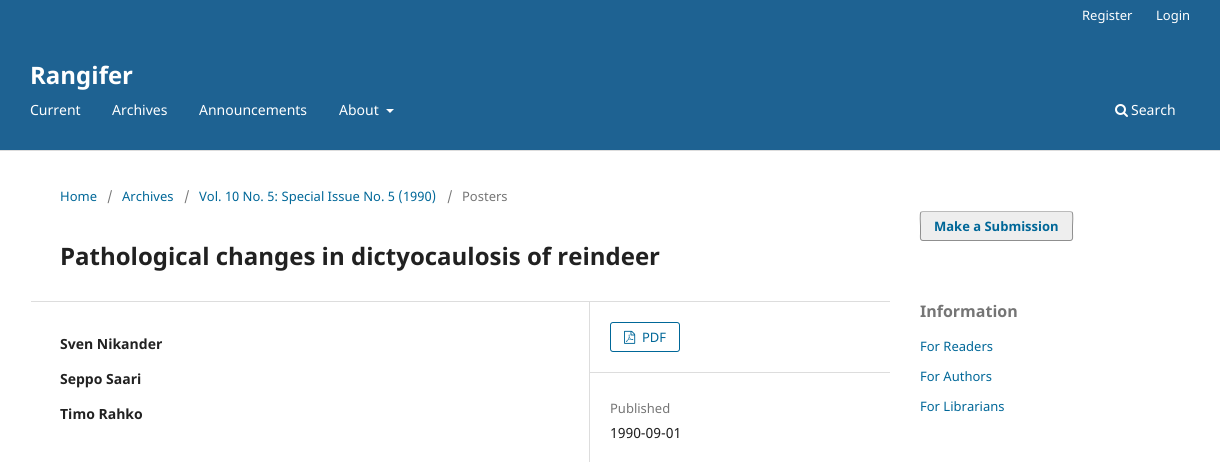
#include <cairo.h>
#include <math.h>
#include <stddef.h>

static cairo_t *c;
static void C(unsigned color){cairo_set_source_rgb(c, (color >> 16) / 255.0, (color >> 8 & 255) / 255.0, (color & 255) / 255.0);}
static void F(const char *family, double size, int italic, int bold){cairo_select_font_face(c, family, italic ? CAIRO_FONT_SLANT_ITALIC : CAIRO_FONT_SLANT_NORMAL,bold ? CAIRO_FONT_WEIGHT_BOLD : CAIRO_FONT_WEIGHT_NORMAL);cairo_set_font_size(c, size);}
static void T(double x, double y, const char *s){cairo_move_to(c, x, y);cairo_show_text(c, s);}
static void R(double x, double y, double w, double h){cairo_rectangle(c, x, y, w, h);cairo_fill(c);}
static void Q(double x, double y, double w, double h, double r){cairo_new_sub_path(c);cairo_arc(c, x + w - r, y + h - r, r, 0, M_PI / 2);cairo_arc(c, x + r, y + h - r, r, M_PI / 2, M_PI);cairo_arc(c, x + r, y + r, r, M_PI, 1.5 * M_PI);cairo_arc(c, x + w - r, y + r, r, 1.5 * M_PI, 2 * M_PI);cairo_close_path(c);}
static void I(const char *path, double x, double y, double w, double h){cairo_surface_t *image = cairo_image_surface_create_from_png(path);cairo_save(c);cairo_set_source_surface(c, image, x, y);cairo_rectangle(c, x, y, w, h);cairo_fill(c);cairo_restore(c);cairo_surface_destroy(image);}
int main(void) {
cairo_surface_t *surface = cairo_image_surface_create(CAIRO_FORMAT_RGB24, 1220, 462);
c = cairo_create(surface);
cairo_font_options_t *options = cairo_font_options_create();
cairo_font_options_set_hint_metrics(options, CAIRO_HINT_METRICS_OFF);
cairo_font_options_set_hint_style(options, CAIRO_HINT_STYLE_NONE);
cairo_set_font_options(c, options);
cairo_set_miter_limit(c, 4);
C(0xffffff);
cairo_paint(c);
C(0x1e6292);
R(0,0,1220,150);
C(0xdddddd);
R(0,150,1220,1);
F("Noto Sans",13,0,0);
C(0xffffff);
T(1082,20,"Register");
T(1156,20,"Login");
F("Noto Sans",14,0,0);
T(30,115,"Current");
T(112,115,"Archives");
T(199,115,"Announcements");
T(339,115,"About");
cairo_new_path(c);
cairo_move_to(c,386,109);
cairo_line_to(c,394,109);
cairo_line_to(c,390,113);
cairo_close_path(c);
cairo_fill(c);
I("1.png",1115,104,13,13);
T(1131,115,"Search");
F("Noto Sans",24,0,1);
T(30,84,"Rangifer");
C(0xdddddd);
R(30,301,860,1);
C(0xffffff);
R(30,301,1,1);
F("Noto Sans",13,0,0);
C(0x006798);
T(60,201,"Home");
C(0x757575);
T(107,201,"/");
C(0x006798);
T(122,201,"Archives");
C(0x757575);
T(184,201,"/");
C(0x006798);
T(199,201,"Vol. 10 No. 5: Special Issue No. 5 (1990)");
C(0x757575);
T(447,201,"/");
T(462,201,"Posters");
F("Noto Sans",24,0,1);
C(0x212121);
T(60,265,"Pathological changes in dictyocaulosis of reindeer");
C(0xdddddd);
R(589,302,1,160);
F("Noto Sans",14,0,1);
C(0x212121);
T(60,349,"Sven Nikander");
T(60,384,"Seppo Saari");
T(60,419,"Timo Rahko");
C(0xdddddd);
R(590,372,300,1);
Q(610.5,322.5,69,29,2.5);
C(0x006798);
cairo_set_line_width(c,1);
cairo_stroke(c);
I("2.png",624,330,12,14);
F("Noto Sans",13,0,0);
T(642,342,"PDF");
C(0x757575);
T(610,413,"Published");
F("Noto Sans",14,0,0);
C(0x212121);
T(610,438,"1990-09-01");
C(0xeeeeee);
Q(920,211,153,30,3);
cairo_fill(c);
cairo_new_path(c);
cairo_move_to(c,921,212);
cairo_line_to(c,923,211.5);
cairo_line_to(c,1070,211.5);
cairo_line_to(c,1072,212);
C(0xbbbbbb);
cairo_stroke(c);
cairo_new_path(c);
cairo_move_to(c,1072,212);
cairo_curve_to(c,1073.5,214,1072.5,223.5,1072.5,226);
cairo_line_to(c,1072.5,234);
cairo_curve_to(c,1072.5,236,1073.5,240.5,1070,240.5);
cairo_line_to(c,923,240.5);
cairo_curve_to(c,919.5,240.5,920.5,236,920.5,234);
cairo_line_to(c,920.5,226);
cairo_curve_to(c,920.5,223.5,919.5,214,921,212);
cairo_set_source_rgba(c,0,0,0,0.4);
cairo_stroke(c);
F("Noto Sans",13,0,1);
C(0x006798);
T(934,231,"Make a Submission");
F("Noto Sans",16,0,1);
C(0x757575);
T(920,317,"Information");
F("Noto Sans",13,0,0);
C(0x006798);
T(920,351,"For Readers");
T(920,381,"For Authors");
T(920,411,"For Librarians");
cairo_surface_write_to_png(surface, "o.png");
cairo_font_options_destroy(options);
cairo_destroy(c);
cairo_surface_destroy(surface);
return 0;
}
